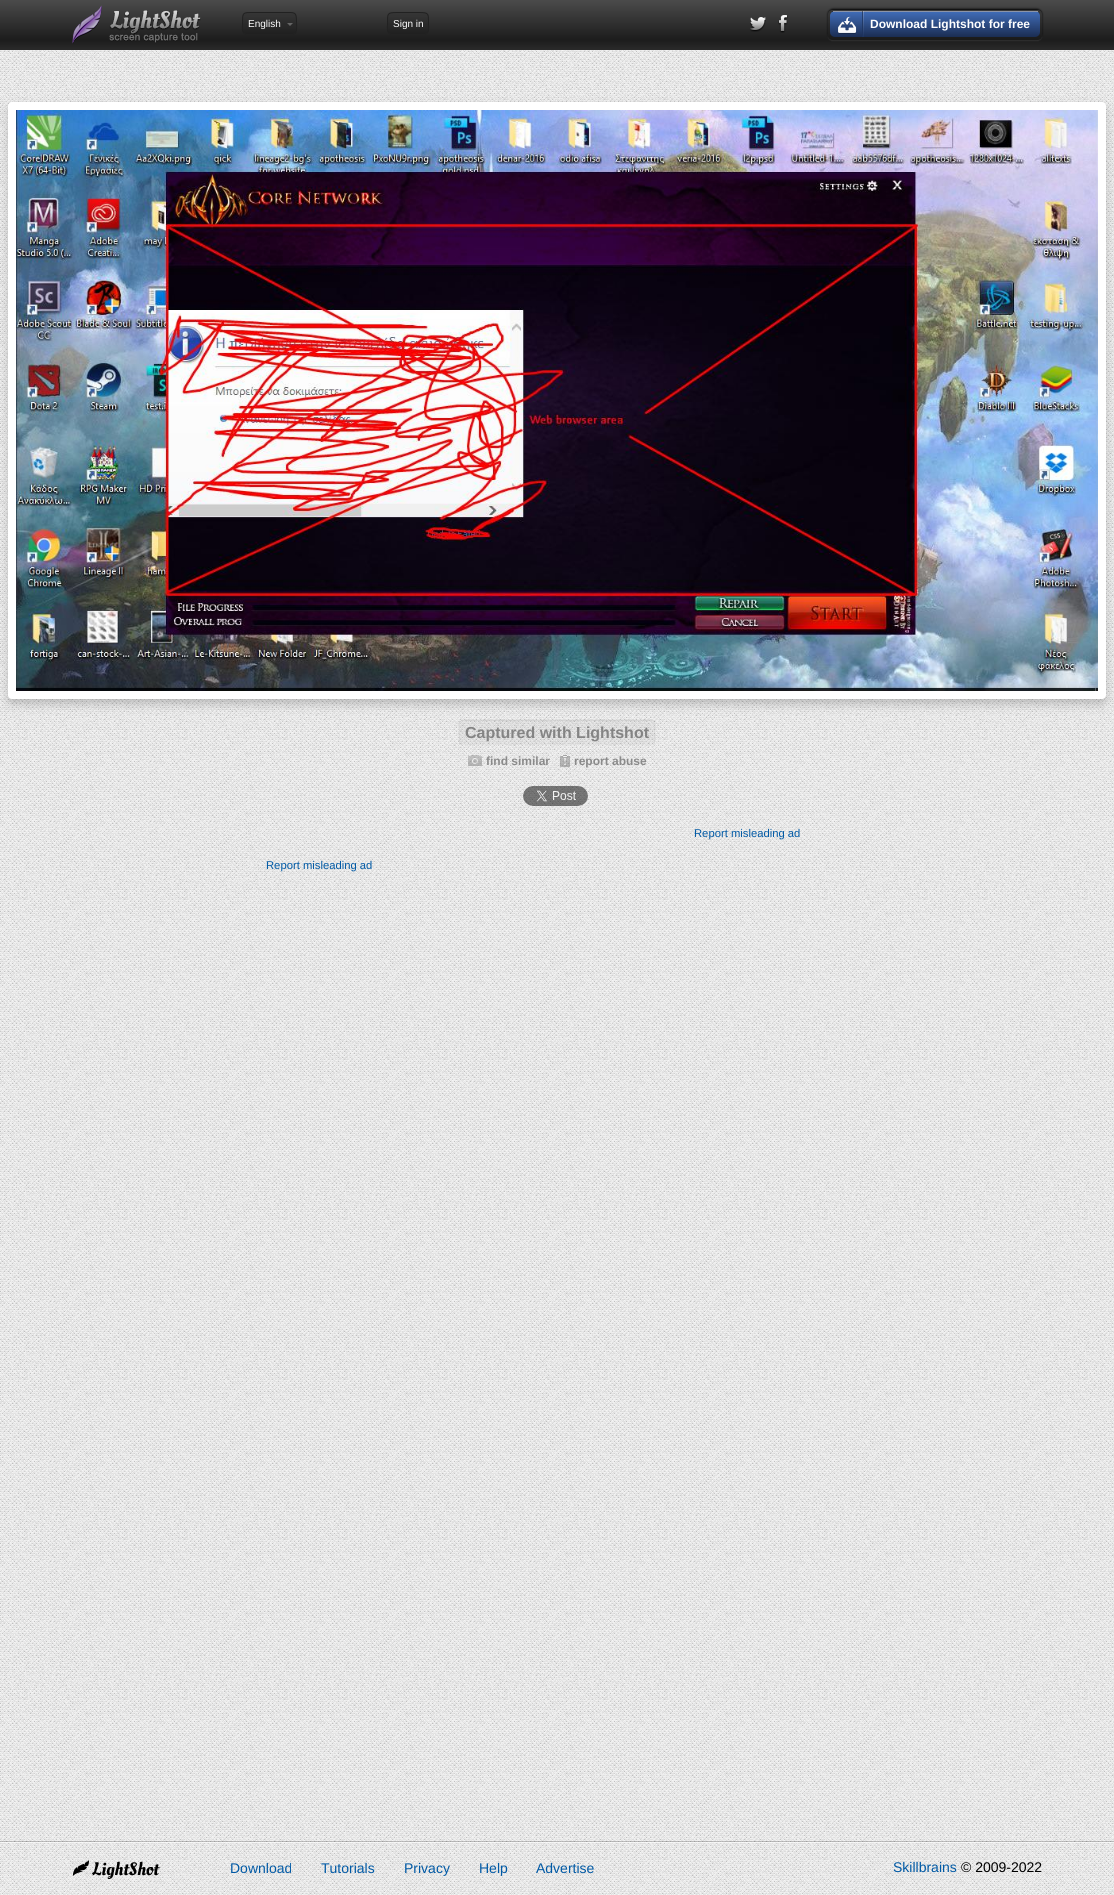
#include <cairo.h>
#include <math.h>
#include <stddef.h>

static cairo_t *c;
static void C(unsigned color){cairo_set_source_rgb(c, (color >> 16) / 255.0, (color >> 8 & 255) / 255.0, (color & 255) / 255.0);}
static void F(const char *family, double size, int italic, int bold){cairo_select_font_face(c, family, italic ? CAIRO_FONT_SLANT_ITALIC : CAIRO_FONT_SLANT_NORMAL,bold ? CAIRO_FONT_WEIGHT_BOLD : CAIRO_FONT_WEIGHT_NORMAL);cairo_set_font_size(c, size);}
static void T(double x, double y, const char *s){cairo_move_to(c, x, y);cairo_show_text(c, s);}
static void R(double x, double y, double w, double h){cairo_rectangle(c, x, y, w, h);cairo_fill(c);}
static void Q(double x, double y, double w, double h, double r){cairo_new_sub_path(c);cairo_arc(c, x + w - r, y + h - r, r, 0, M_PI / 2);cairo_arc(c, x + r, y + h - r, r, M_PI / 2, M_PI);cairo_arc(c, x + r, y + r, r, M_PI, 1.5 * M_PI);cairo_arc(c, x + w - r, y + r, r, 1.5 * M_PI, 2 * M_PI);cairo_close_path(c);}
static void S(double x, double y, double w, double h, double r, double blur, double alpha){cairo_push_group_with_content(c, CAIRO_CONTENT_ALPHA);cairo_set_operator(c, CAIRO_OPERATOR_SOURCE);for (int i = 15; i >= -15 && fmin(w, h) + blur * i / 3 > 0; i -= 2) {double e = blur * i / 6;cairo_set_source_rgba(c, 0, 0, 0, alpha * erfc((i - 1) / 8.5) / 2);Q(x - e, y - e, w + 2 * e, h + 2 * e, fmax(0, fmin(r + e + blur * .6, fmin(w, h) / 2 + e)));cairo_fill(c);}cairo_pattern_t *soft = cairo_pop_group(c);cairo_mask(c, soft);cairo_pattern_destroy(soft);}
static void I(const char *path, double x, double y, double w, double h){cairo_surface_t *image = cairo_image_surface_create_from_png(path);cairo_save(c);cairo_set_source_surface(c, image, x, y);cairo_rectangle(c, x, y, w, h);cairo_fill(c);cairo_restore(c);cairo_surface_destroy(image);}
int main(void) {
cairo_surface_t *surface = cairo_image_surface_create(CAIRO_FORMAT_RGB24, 1114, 1895);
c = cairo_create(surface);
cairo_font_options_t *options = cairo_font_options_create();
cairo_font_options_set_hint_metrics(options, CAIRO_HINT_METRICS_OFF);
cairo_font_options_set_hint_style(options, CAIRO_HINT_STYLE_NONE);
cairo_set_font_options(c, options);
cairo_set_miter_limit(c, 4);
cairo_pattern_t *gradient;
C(0xffffff);
cairo_paint(c);
I("1.png",0,50,1114,1845);
gradient = cairo_pattern_create_linear(557,0,557,50);
cairo_pattern_add_color_stop_rgba(gradient,0,0.294,0.294,0.294,1);
cairo_pattern_add_color_stop_rgba(gradient,.8,0.11,0.11,0.11,1);
cairo_pattern_add_color_stop_rgba(gradient,1,0.165,0.165,0.165,1);
cairo_set_source(c,gradient);
cairo_pattern_destroy(gradient);
R(0,0,1114,50);
I("2.png",72,5,129,39);
cairo_set_source_rgba(c,0,0,0,0.1);
Q(242,12,55,23,5);
cairo_fill(c);
cairo_new_path(c);
cairo_move_to(c,295,33);
cairo_curve_to(c,294.5,34,293,34.5,292,34.5);
cairo_line_to(c,247,34.5);
cairo_curve_to(c,246,34.5,244.5,34,244,33);
C(0x222222);
cairo_set_line_width(c,1);
cairo_stroke(c);
cairo_new_path(c);
cairo_move_to(c,244,33);
cairo_curve_to(c,241.5,31,242.5,26.5,242.5,23.5);
cairo_curve_to(c,242.5,12,242.5,12.5,254.5,12.5);
cairo_line_to(c,284.5,12.5);
cairo_curve_to(c,294.5,12.5,296.5,11.5,296.5,21.5);
cairo_curve_to(c,296.5,24.5,297.5,30.5,295,33);
C(0x212121);
cairo_stroke(c);
F("Liberation Sans",10,0,0);
C(0xffffff);
T(248,27,"English");
C(0x666666);
cairo_new_path(c);
cairo_move_to(c,287,23);
cairo_line_to(c,293,23);
cairo_line_to(c,290,26);
cairo_close_path(c);
cairo_fill(c);
cairo_set_source_rgba(c,0,0,0,0.1);
Q(387,12,42,23,5);
cairo_fill(c);
cairo_new_path(c);
cairo_move_to(c,427,33);
cairo_curve_to(c,426.5,34,425,34.5,424,34.5);
cairo_line_to(c,392,34.5);
cairo_curve_to(c,391,34.5,389.5,34,389,33);
C(0x222222);
cairo_stroke(c);
cairo_new_path(c);
cairo_move_to(c,389,33);
cairo_curve_to(c,386.5,31,387.5,26.5,387.5,23.5);
cairo_curve_to(c,387.5,13.5,387,12.5,397.5,12.5);
cairo_line_to(c,418.5,12.5);
cairo_curve_to(c,429,12.5,428.5,13.5,428.5,23.5);
cairo_curve_to(c,428.5,26.5,429.5,31,427,33);
C(0x212121);
cairo_stroke(c);
C(0xffffff);
T(393,27,"Sign in");
I("3.png",750,17,16,15);
I("4.png",778,15,10,18);
cairo_save(c);
cairo_set_fill_rule(c,CAIRO_FILL_RULE_EVEN_ODD);
cairo_new_path(c);
cairo_move_to(c,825,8);
cairo_line_to(c,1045,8);
cairo_line_to(c,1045,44);
cairo_line_to(c,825,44);
cairo_close_path(c);
cairo_move_to(c,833,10);
cairo_line_to(c,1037,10);
cairo_curve_to(c,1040,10,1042,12,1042,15);
cairo_line_to(c,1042,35);
cairo_curve_to(c,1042,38,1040,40,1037,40);
cairo_line_to(c,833,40);
cairo_curve_to(c,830,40,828,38,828,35);
cairo_line_to(c,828,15);
cairo_curve_to(c,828,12,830,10,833,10);
cairo_close_path(c);
cairo_clip(c);
C(0xffffff);
S(828,11,214,30,5,.5,.1);
cairo_restore(c);
cairo_save(c);
cairo_set_fill_rule(c,CAIRO_FILL_RULE_EVEN_ODD);
cairo_new_path(c);
cairo_move_to(c,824,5);
cairo_line_to(c,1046,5);
cairo_line_to(c,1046,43);
cairo_line_to(c,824,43);
cairo_close_path(c);
cairo_move_to(c,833,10);
cairo_line_to(c,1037,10);
cairo_curve_to(c,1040,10,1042,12,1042,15);
cairo_line_to(c,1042,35);
cairo_curve_to(c,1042,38,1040,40,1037,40);
cairo_line_to(c,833,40);
cairo_curve_to(c,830,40,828,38,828,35);
cairo_line_to(c,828,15);
cairo_curve_to(c,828,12,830,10,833,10);
cairo_close_path(c);
cairo_clip(c);
C(0x000000);
S(828,9,214,30,5,1,.99);
cairo_restore(c);
cairo_set_source_rgba(c,0,0,0,0.11);
Q(828,10,214,30,5);
cairo_fill(c);
cairo_save(c);
Q(830,11,210,26,5);
cairo_clip(c);
gradient = cairo_pattern_create_linear(935,-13,935,12);
cairo_pattern_add_color_stop_rgba(gradient,0,0.251,0.424,0.714,1);
cairo_pattern_add_color_stop_rgba(gradient,1,0.106,0.176,0.329,1);
cairo_set_source(c,gradient);
cairo_pattern_destroy(gradient);
R(830,11,210,1);
gradient = cairo_pattern_create_linear(935,12,935,37);
cairo_pattern_add_color_stop_rgba(gradient,0,0.251,0.427,0.722,.98);
cairo_pattern_add_color_stop_rgba(gradient,1,0.102,0.176,0.329,.98);
cairo_set_source(c,gradient);
cairo_pattern_destroy(gradient);
cairo_new_path(c);
cairo_move_to(c,830,12);
cairo_line_to(c,1040,12);
cairo_line_to(c,1040,32);
cairo_curve_to(c,1040,35,1038,37,1035,37);
cairo_line_to(c,835,37);
cairo_curve_to(c,832,37,830,35,830,32);
cairo_close_path(c);
cairo_fill(c);
cairo_restore(c);
cairo_set_source_rgba(c,0.984,0.984,0.984,0.5);
R(833,11,205,1);
I("5.png",838,16,19,18);
I("6.png",862,11,2,26);
F("Liberation Sans",12,0,1);
C(0xffffff);
T(870,28,"Download Lightshot for free");
C(0x000000);
S(8,107,1098,597,4,5,.2);
C(0xffffff);
Q(8,102,1098,597,4);
cairo_fill(c);
I("7.png",16,110,1067,581);
I("8.png",1083,110,15,581);
cairo_save(c);
cairo_set_fill_rule(c,CAIRO_FILL_RULE_EVEN_ODD);
cairo_new_path(c);
cairo_move_to(c,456,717);
cairo_line_to(c,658,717);
cairo_line_to(c,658,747);
cairo_line_to(c,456,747);
cairo_close_path(c);
cairo_move_to(c,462,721);
cairo_line_to(c,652,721);
cairo_curve_to(c,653.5,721,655,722.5,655,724);
cairo_line_to(c,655,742);
cairo_curve_to(c,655,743.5,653.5,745,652,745);
cairo_line_to(c,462,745);
cairo_curve_to(c,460.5,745,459,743.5,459,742);
cairo_line_to(c,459,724);
cairo_curve_to(c,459,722.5,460.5,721,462,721);
cairo_close_path(c);
cairo_clip(c);
C(0x000000);
S(459,720,196,24,3,.5,.12);
cairo_restore(c);
cairo_set_source_rgba(c,0,0,0,0.04);
R(459,721,196,24);
R(654,723,1,21);
R(459,723,1,21);
F("Liberation Sans",16,0,1);
C(0x848484);
T(465,738,"Captured with Lightshot");
I("9.png",468,755,14,11);
F("Liberation Sans",12,0,1);
C(0x8a8a8a);
T(486,765,"find similar");
I("10.png",560,755,10,12);
T(574,765,"report abuse");
I("11.png",523,786,65,20);
F("Liberation Sans",11.25,0,0);
C(0x0059a5);
T(694,837,"Report misleading ad");
T(266,869,"Report misleading ad");
cairo_set_source_rgba(c,0,0,0,0.2);
R(0,1841,1114,1);
cairo_set_source_rgba(c,1,1,1,0.6);
R(0,1842,1114,1);
I("12.png",73,1860,87,19);
F("Liberation Sans",14,0,0);
C(0x0059a5);
T(230,1873,"Download");
T(321,1873,"Tutorials");
T(404,1873,"Privacy");
T(479,1873,"Help");
T(536,1873,"Advertise");
T(893,1872,"Skillbrains");
C(0x000000);
T(961,1872,"© 2009-2022");
cairo_surface_write_to_png(surface, "o.png");
cairo_font_options_destroy(options);
cairo_destroy(c);
cairo_surface_destroy(surface);
return 0;
}
